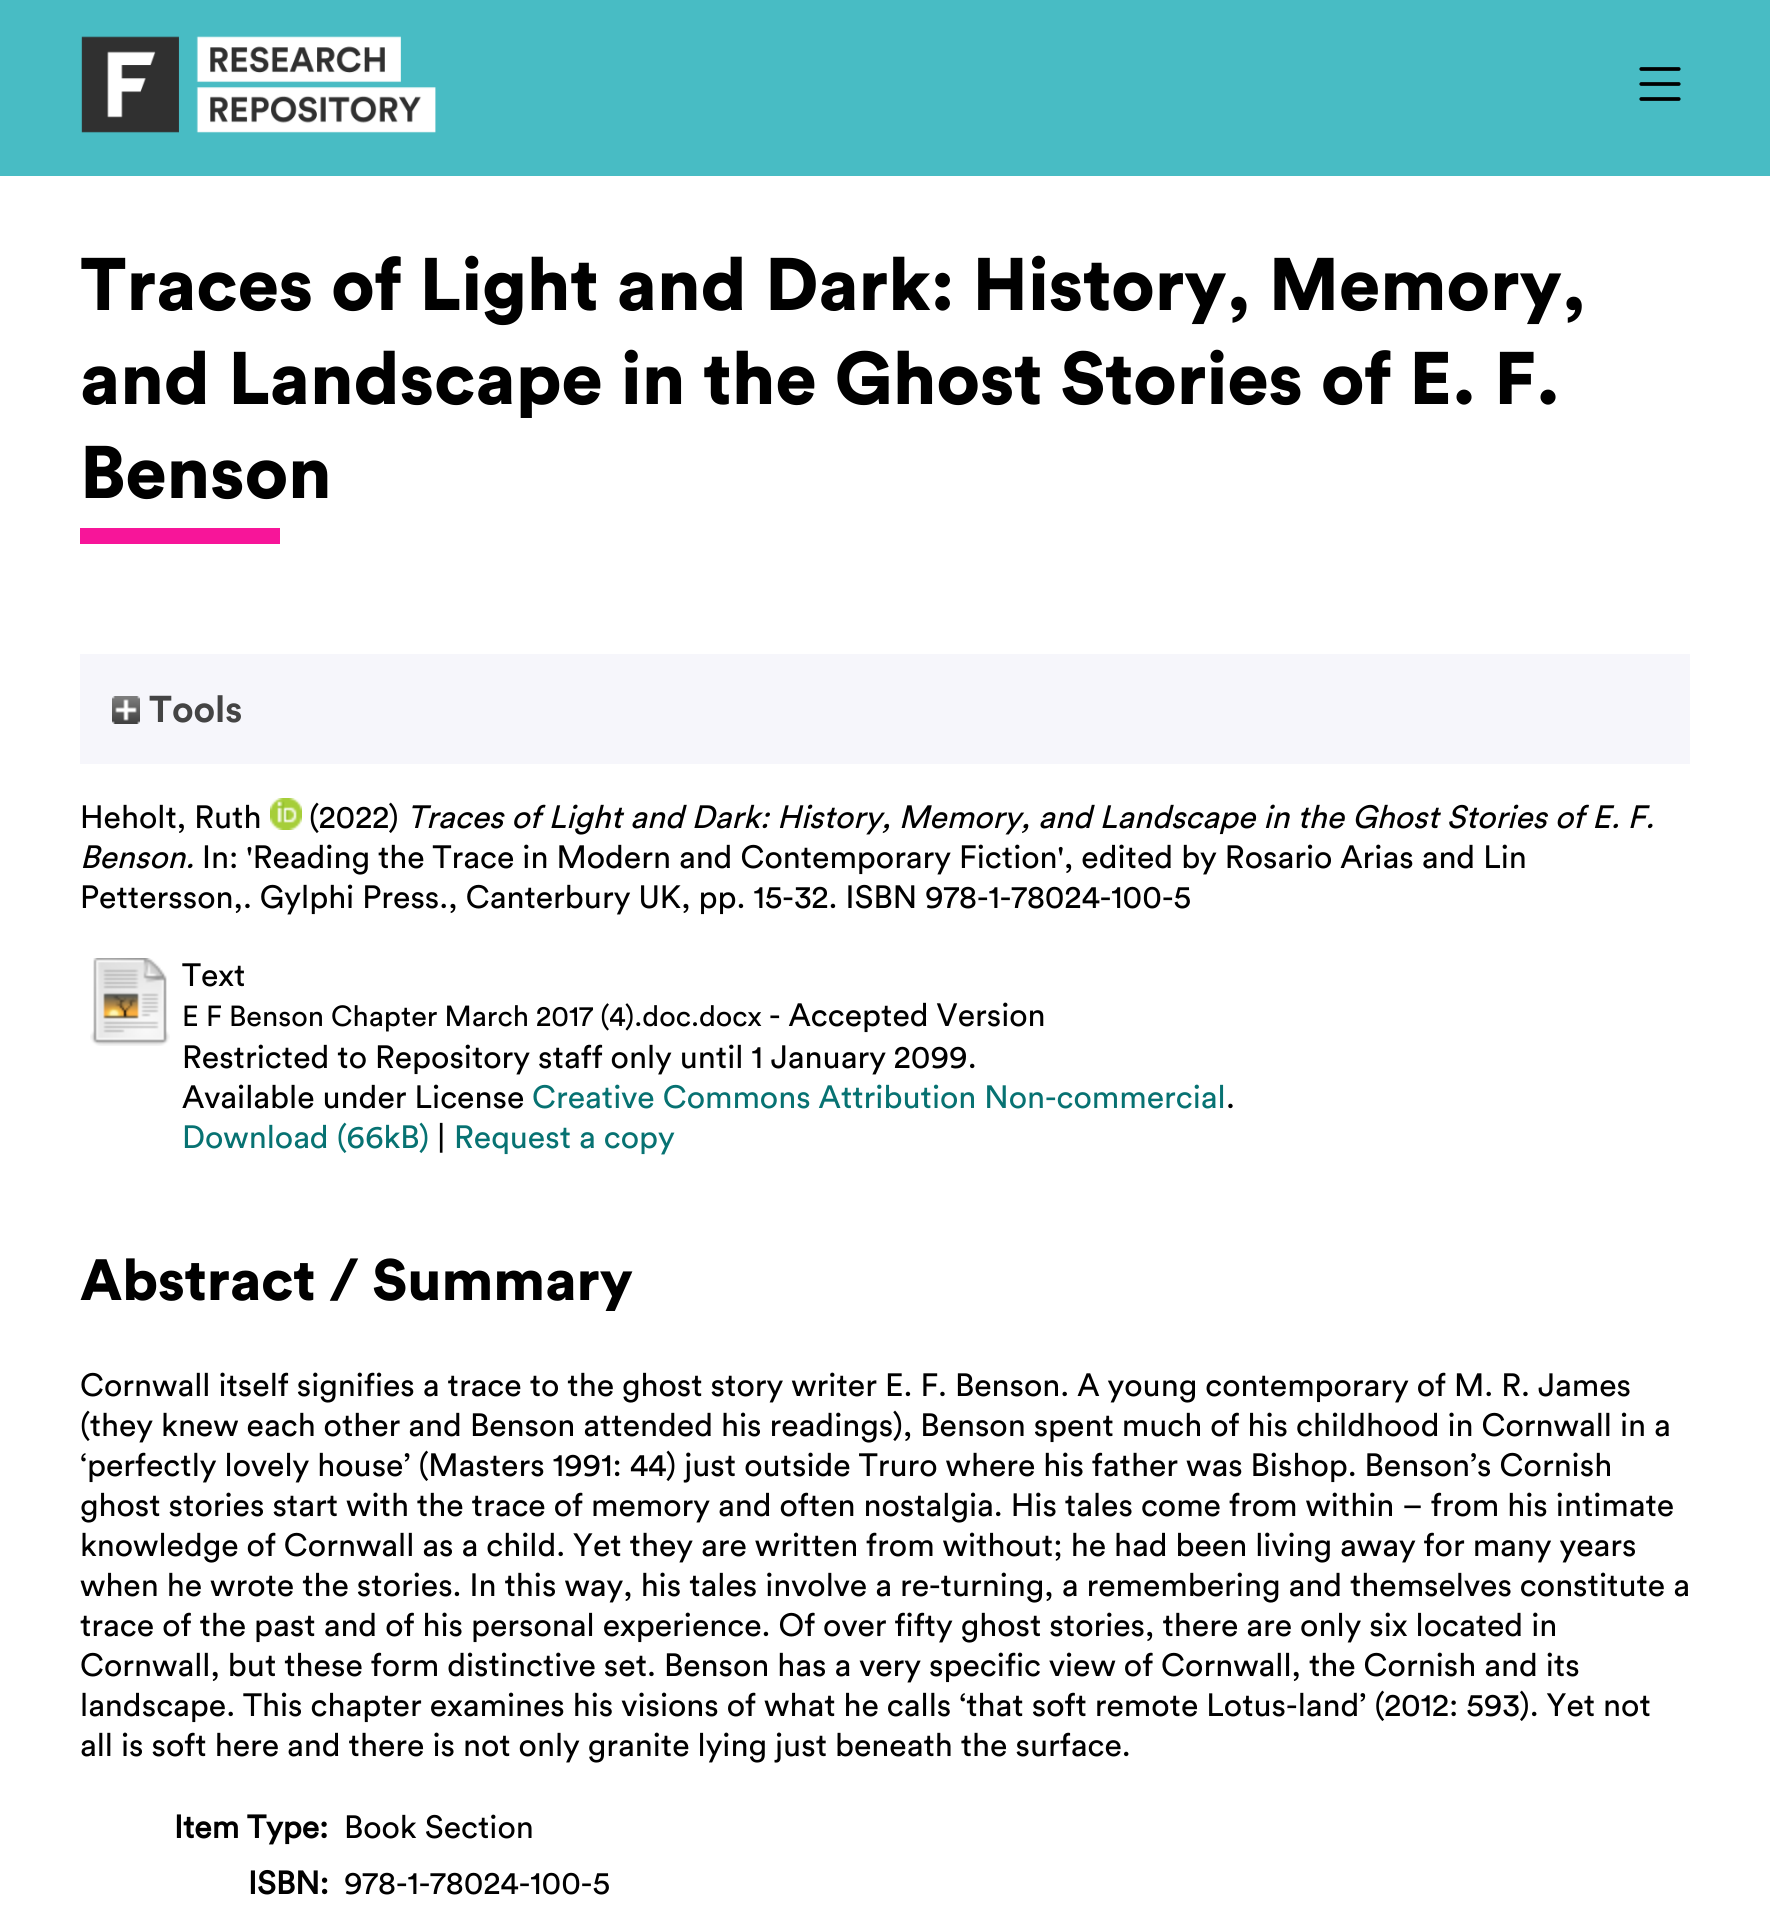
#include <cairo.h>
#include <math.h>
#include <stddef.h>

static cairo_t *c;
static void C(unsigned color){cairo_set_source_rgb(c, (color >> 16) / 255.0, (color >> 8 & 255) / 255.0, (color & 255) / 255.0);}
static void F(const char *family, double size, int italic, int bold){cairo_select_font_face(c, family, italic ? CAIRO_FONT_SLANT_ITALIC : CAIRO_FONT_SLANT_NORMAL,bold ? CAIRO_FONT_WEIGHT_BOLD : CAIRO_FONT_WEIGHT_NORMAL);cairo_set_font_size(c, size);}
static void T(double x, double y, const char *s){cairo_move_to(c, x, y);cairo_show_text(c, s);}
static void R(double x, double y, double w, double h){cairo_rectangle(c, x, y, w, h);cairo_fill(c);}
static void I(const char *path, double x, double y, double w, double h){cairo_surface_t *image = cairo_image_surface_create_from_png(path);cairo_save(c);cairo_set_source_surface(c, image, x, y);cairo_rectangle(c, x, y, w, h);cairo_fill(c);cairo_restore(c);cairo_surface_destroy(image);}
int main(void) {
cairo_surface_t *surface = cairo_image_surface_create(CAIRO_FORMAT_RGB24, 1770, 1927);
c = cairo_create(surface);
cairo_font_options_t *options = cairo_font_options_create();
cairo_font_options_set_hint_metrics(options, CAIRO_HINT_METRICS_OFF);
cairo_font_options_set_hint_style(options, CAIRO_HINT_STYLE_NONE);
cairo_set_font_options(c, options);
cairo_set_miter_limit(c, 4);
C(0xffffff);
cairo_paint(c);
C(0x48bcc4);
R(0,0,1770,176);
I("1.png",81,36,355,97);
I("2.png",1639,67,42,34);
F("Circular Black",73.6,0,0);
C(0x000000);
T(80,310,"Traces of Light and Dark: History, Memory,");
T(80,404,"and Landscape in the Ghost Stories of E. F.");
T(80,498,"Benson");
C(0xf71599);
R(80,528,200,16);
C(0xf6f6fb);
R(80,654,1610,110);
I("3.png",112,696,28,28);
F("Circular",37,0,1);
C(0x444444);
T(149,722,"Tools");
F("Circular",32,0,0);
C(0x000000);
T(80,828,"Heholt, Ruth");
I("4.png",270,798,32,32);
T(309,828,"(2022)");
F("Circular",32,1,0);
T(407,828,"Traces of Light and Dark: History, Memory, and Landscape in the Ghost Stories of E. F.");
T(80,868,"Benson.");
F("Circular",32,0,0);
T(202,868,"In: 'Reading the Trace in Modern and Contemporary Fiction', edited by Rosario Arias and Lin");
T(80,908,"Pettersson,. Gylphi Press., Canterbury UK, pp. 15-32. ISBN 978-1-78024-100-5");
I("5.png",90,958,80,88);
T(182,986,"Text");
F("Circular",28.8,0,0);
T(182,1026,"E F Benson Chapter March 2017 (4).doc.docx");
F("Circular",32,0,0);
T(769,1026,"- Accepted Version");
T(182,1068,"Restricted to Repository staff only until 1 January 2099.");
T(182,1108,"Available under License");
C(0x077272);
T(532,1108,"Creative Commons Attribution Non-commercial");
C(0x000000);
T(1226,1108,".");
C(0x077272);
T(182,1148,"Download (66kB)");
C(0x000000);
T(437,1148,"|");
C(0x077272);
T(454,1148,"Request a copy");
F("Circular Black",57.5,0,0);
C(0x000000);
T(80,1300,"Abstract / Summary");
F("Circular",32,0,0);
T(80,1396,"Cornwall itself signifies a trace to the ghost story writer E. F. Benson. A young contemporary of M. R. James");
T(80,1436,"(they knew each other and Benson attended his readings), Benson spent much of his childhood in Cornwall in a");
T(80,1476,"‘perfectly lovely house’ (Masters 1991: 44) just outside Truro where his father was Bishop. Benson’s Cornish");
T(80,1516,"ghost stories start with the trace of memory and often nostalgia. His tales come from within – from his intimate");
T(80,1556,"knowledge of Cornwall as a child. Yet they are written from without; he had been living away for many years");
T(80,1596,"when he wrote the stories. In this way, his tales involve a re-turning, a remembering and themselves constitute a");
T(80,1636,"trace of the past and of his personal experience. Of over fifty ghost stories, there are only six located in");
T(80,1676,"Cornwall, but these form distinctive set. Benson has a very specific view of Cornwall, the Cornish and its");
T(80,1716,"landscape. This chapter examines his visions of what he calls ‘that soft remote Lotus-land’ (2012: 593). Yet not");
T(80,1756,"all is soft here and there is not only granite lying just beneath the surface.");
F("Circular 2",32,0,1);
T(174,1838,"Item Type:");
F("Circular",32,0,0);
T(344,1838,"Book Section");
F("Circular 2",32,0,1);
T(248,1894,"ISBN:");
F("Circular",32,0,0);
T(344,1894,"978-1-78024-100-5");
cairo_surface_write_to_png(surface, "o.png");
cairo_font_options_destroy(options);
cairo_destroy(c);
cairo_surface_destroy(surface);
return 0;
}
